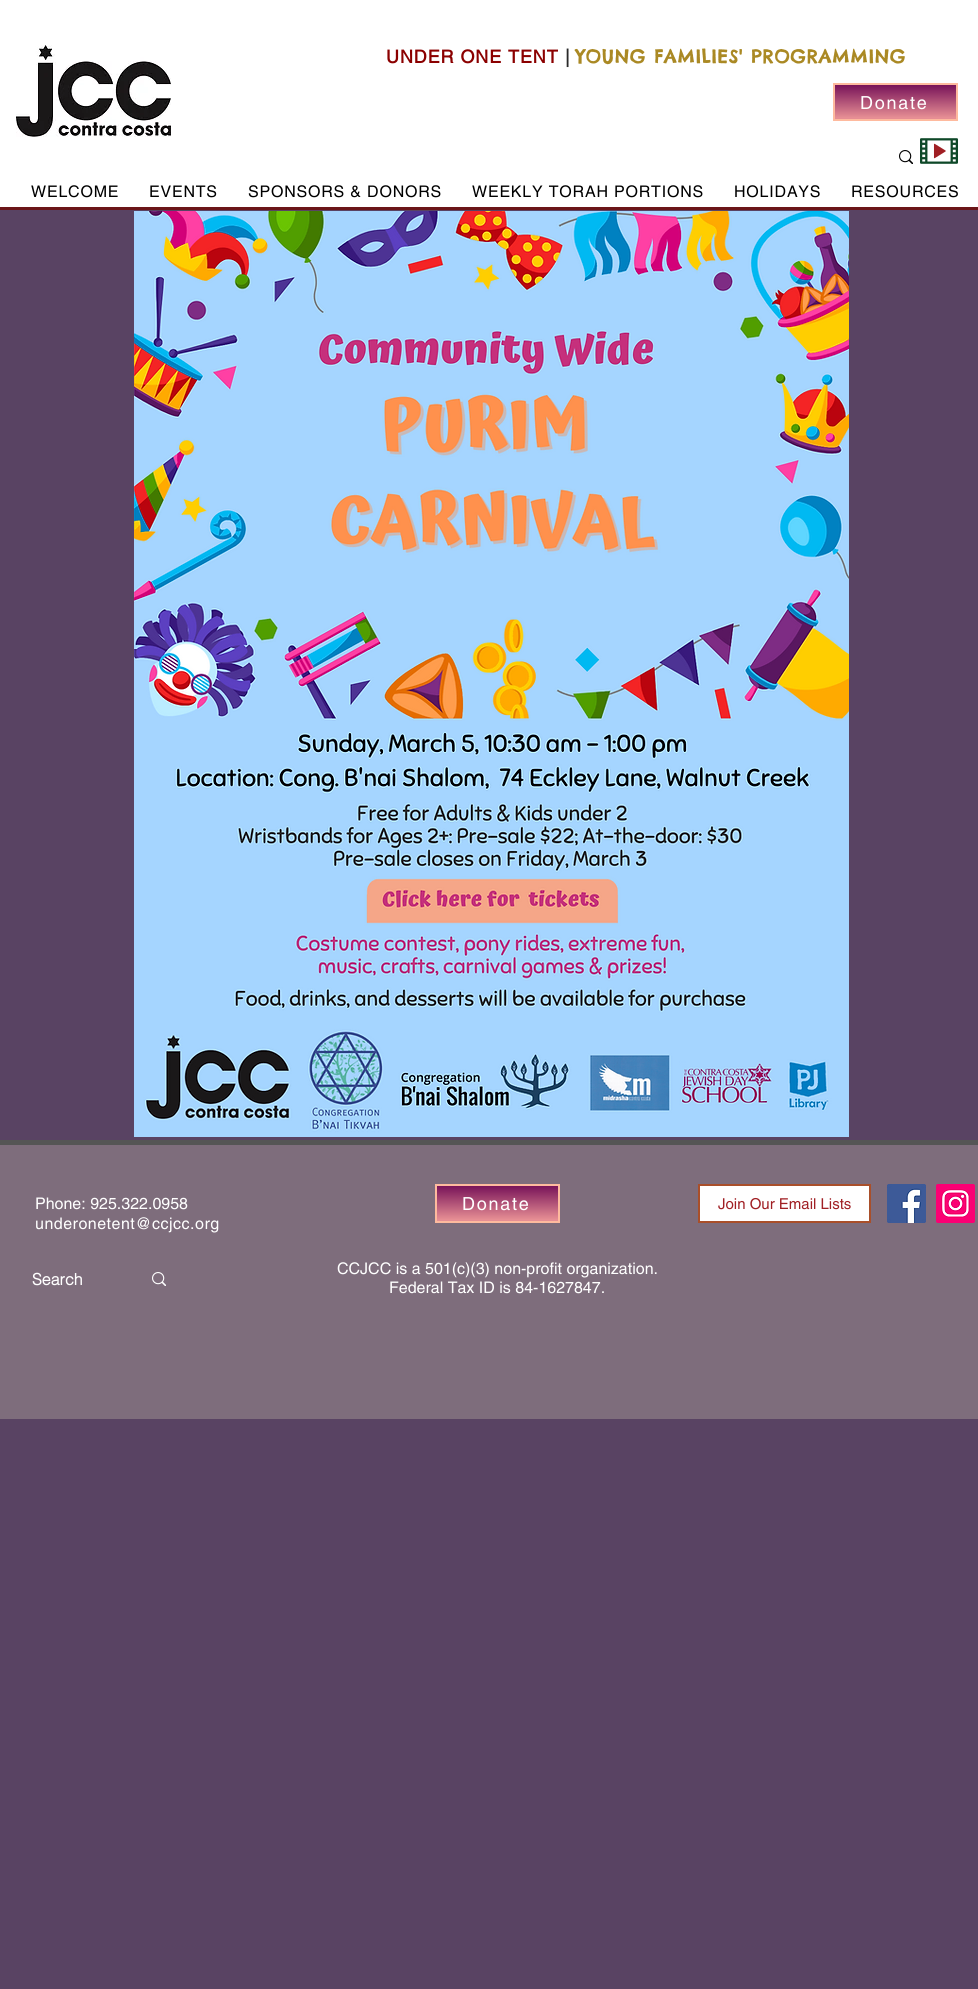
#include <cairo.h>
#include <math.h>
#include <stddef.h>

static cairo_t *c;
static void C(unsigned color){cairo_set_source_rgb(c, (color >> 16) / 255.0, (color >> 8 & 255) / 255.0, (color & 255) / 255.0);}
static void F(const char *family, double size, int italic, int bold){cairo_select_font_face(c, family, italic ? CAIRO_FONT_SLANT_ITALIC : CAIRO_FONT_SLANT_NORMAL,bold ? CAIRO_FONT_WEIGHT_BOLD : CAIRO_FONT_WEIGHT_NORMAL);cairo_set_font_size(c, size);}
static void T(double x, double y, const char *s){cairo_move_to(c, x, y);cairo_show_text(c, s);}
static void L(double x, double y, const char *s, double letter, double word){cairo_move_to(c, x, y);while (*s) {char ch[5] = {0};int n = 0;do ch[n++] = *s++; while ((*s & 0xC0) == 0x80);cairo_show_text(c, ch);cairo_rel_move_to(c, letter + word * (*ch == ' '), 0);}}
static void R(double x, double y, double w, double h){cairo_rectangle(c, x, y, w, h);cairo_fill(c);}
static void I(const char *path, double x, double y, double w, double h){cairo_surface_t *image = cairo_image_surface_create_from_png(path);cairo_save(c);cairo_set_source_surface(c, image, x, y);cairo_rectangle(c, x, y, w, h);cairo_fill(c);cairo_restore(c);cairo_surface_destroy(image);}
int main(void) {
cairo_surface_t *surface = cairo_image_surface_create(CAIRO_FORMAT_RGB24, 978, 1989);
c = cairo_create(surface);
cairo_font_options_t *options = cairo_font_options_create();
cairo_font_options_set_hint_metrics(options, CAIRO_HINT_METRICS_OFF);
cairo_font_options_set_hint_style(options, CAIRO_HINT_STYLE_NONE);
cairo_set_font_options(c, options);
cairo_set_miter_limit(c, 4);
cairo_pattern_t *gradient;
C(0x594363);
cairo_paint(c);
C(0xffffff);
R(0,0,978,207);
C(0x6b1518);
R(0,207,978,3);
I("1.png",16,45,155,92);
F("helvetica",18,0,1);
C(0x8b0000);
L(386,63,"UNDER ONE TENT",.9,0);
C(0x2a2a2a);
L(565,63,"|",.9,0);
F("Chelsea Market",18,0,1);
C(0xaa8924);
L(576,63,"YOUNG FAMILIES' PROGRAMMING",.9,0);
gradient = cairo_pattern_create_linear(896,85,896,119);
cairo_pattern_add_color_stop_rgba(gradient,0,0.471,0.075,0.349,1);
cairo_pattern_add_color_stop_rgba(gradient,.96,0.902,0.557,0.58,1);
cairo_set_source(c,gradient);
cairo_pattern_destroy(gradient);
R(835,85,121,34);
cairo_rectangle(c,834,84,123,36);
C(0xfeba9e);
cairo_stroke(c);
F("helvetica",18,0,0);
C(0xffffff);
L(860,109,"Donate",1.75,0);
I("2.png",899,150,14,14);
I("3.png",920,138,38,26);
F("helvetica",16,0,0);
C(0x000000);
L(31,197,"WELCOME",.8,0);
L(149,197,"EVENTS",.8,0);
L(248,197,"SPONSORS & DONORS",.8,0);
L(472,197,"WEEKLY TORAH PORTIONS",.8,0);
L(734,197,"HOLIDAYS",.8,0);
L(851,197,"RESOURCES",.8,0);
I("4.png",134,211,715,926);
C(0x7e6d7c);
R(0,1145,978,274);
C(0x555555);
R(0,1140,978,5);
C(0xffffff);
T(35,1209,"Phone: 925.322.0958");
L(35,1229,"underonetent@ccjcc.org",.5,0);
gradient = cairo_pattern_create_linear(498,1186,498,1221);
cairo_pattern_add_color_stop_rgba(gradient,0,0.471,0.075,0.349,1);
cairo_pattern_add_color_stop_rgba(gradient,.96,0.902,0.557,0.58,1);
cairo_set_source(c,gradient);
cairo_pattern_destroy(gradient);
R(437,1186,121,35);
cairo_rectangle(c,436,1185,123,37);
C(0xfeba9e);
cairo_stroke(c);
F("helvetica",18,0,0);
C(0xffffff);
L(462,1210,"Donate",1.75,0);
cairo_rectangle(c,699,1185,171,37);
cairo_fill_preserve(c);
C(0xa94f2a);
cairo_stroke(c);
F("helvetica",15,0,0);
C(0xa01f24);
T(718,1209,"Join Our Email Lists");
I("5.png",887,1184,39,39);
I("6.png",936,1184,39,39);
F("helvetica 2",16,0,1);
C(0xffffff);
T(32,1285,"Search");
I("7.png",152,1272,14,14);
F("helvetica",16,0,0);
T(337,1274,"CCJCC is a 501(c)(3) non-profit organization.");
T(389,1293,"Federal Tax ID is 84-1627847.");
cairo_surface_write_to_png(surface, "o.png");
cairo_font_options_destroy(options);
cairo_destroy(c);
cairo_surface_destroy(surface);
return 0;
}
